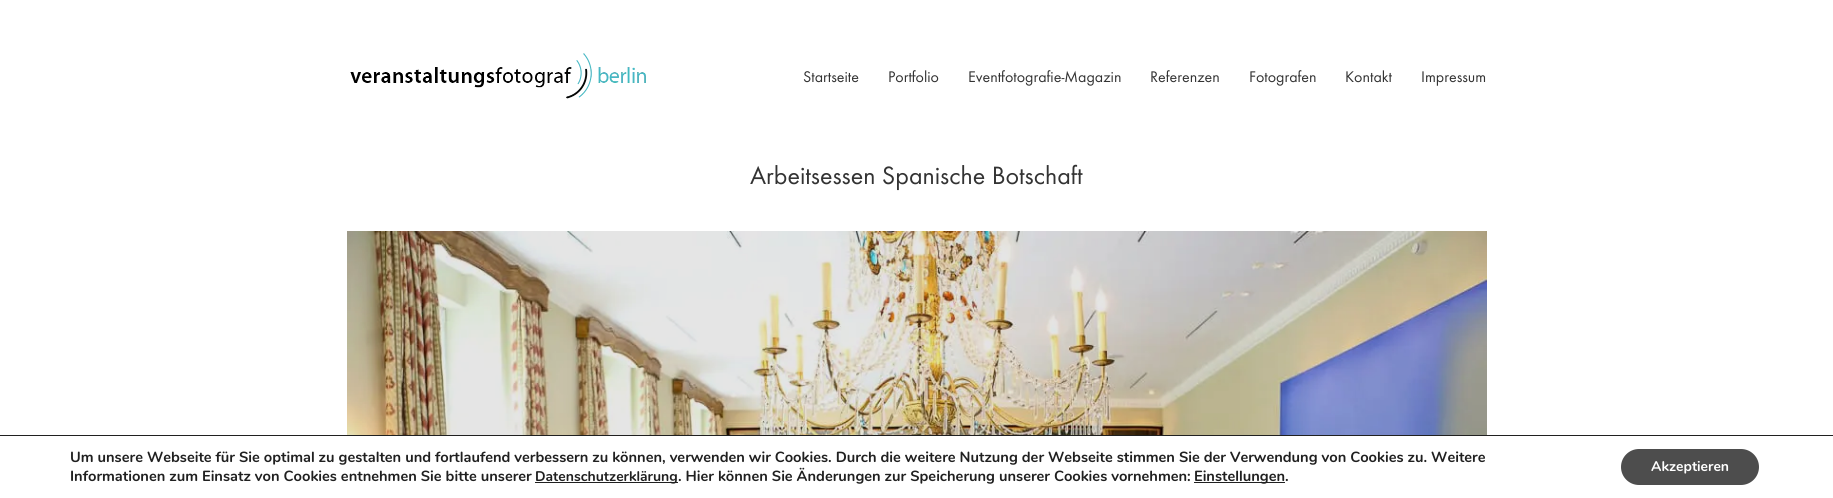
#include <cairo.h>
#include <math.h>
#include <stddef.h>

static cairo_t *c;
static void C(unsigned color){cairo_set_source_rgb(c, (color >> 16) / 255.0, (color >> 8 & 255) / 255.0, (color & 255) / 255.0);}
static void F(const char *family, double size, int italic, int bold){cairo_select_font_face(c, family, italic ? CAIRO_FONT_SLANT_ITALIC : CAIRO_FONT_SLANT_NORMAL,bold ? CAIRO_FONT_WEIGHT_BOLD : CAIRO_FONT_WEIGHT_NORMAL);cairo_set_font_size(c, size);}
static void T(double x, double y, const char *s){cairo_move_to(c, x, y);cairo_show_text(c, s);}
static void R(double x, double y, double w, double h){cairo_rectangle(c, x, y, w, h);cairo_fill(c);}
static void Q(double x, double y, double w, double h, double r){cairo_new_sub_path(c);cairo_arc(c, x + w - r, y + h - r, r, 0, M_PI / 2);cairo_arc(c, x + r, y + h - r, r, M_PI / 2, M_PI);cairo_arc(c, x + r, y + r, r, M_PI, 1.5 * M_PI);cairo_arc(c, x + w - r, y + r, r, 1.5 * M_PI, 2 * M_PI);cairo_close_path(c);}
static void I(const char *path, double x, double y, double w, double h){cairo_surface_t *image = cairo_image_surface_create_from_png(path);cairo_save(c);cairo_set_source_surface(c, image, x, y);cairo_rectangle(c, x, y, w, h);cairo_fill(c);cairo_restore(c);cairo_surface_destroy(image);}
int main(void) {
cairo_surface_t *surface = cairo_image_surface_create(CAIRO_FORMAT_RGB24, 1833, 498);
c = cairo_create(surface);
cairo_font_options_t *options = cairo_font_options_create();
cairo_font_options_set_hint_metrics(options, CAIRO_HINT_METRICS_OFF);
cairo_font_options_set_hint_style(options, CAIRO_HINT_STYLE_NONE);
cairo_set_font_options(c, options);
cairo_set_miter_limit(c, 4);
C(0xffffff);
cairo_paint(c);
I("1.png",350,53,296,46);
F("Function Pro",16,0,0);
C(0x333333);
T(803,82,"Startseite");
T(888,82,"Portfolio");
T(968,82,"Eventfotografie-Magazin");
T(1150,82,"Referenzen");
T(1249,82,"Fotografen");
T(1345,82,"Kontakt");
T(1421,82,"Impressum");
F("Function Pro",26,0,0);
T(750,184,"Arbeitsessen Spanische Botschaft");
I("2.png",347,231,1140,204);
C(0x202020);
R(0,435,1833,1);
F("Nunito",14.67,0,1);
T(70,462,"Um unsere Webseite für Sie optimal zu gestalten und fortlaufend verbessern zu können, verwenden wir Cookies. Durch die weitere Nutzung der Webseite stimmen Sie der Verwendung von Cookies zu. Weitere");
T(70,481,"Informationen zum Einsatz von Cookies entnehmen Sie bitte unserer");
R(535,482,143,1);
F("Nunito",14,0,1);
T(535,481,"Datenschutzerklärung");
F("Nunito",14.67,0,1);
T(678,481,". Hier können Sie Änderungen zur Speicherung unserer Cookies vornehmen:");
R(1194,482,91,1);
T(1194,481,"Einstellungen.");
C(0x4d4d4d);
Q(1621,449,138,36,18);
cairo_fill(c);
F("Nunito",14,0,1);
C(0xffffff);
T(1651,471,"Akzeptieren");
cairo_surface_write_to_png(surface, "o.png");
cairo_font_options_destroy(options);
cairo_destroy(c);
cairo_surface_destroy(surface);
return 0;
}
